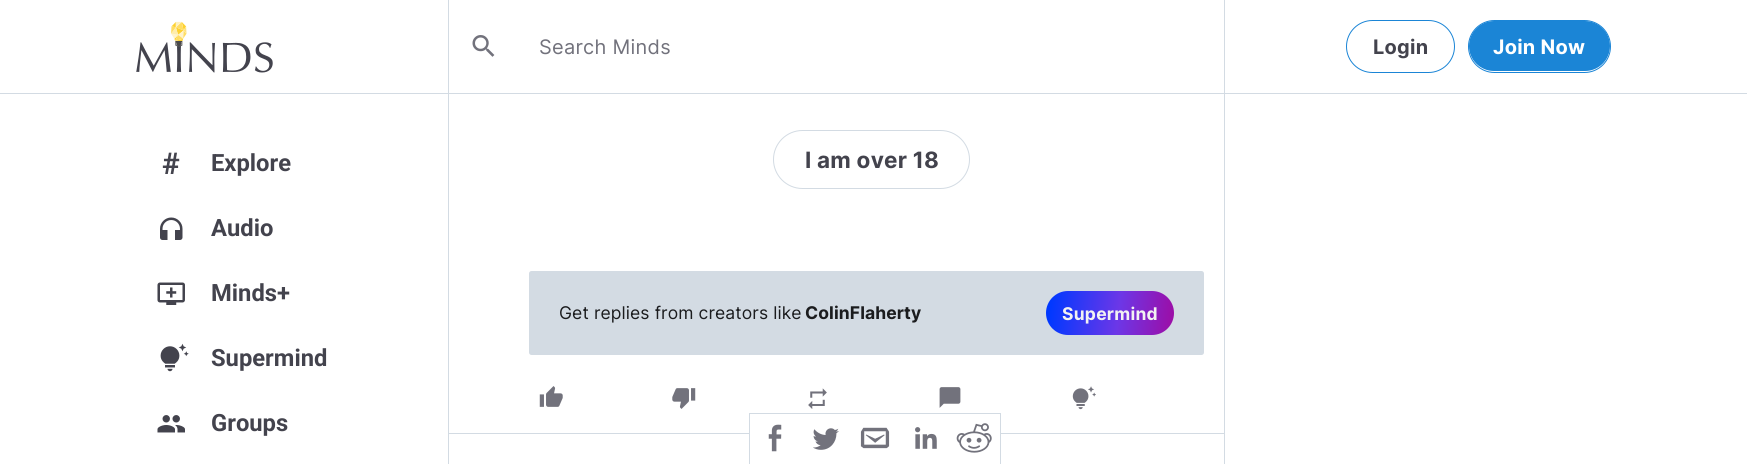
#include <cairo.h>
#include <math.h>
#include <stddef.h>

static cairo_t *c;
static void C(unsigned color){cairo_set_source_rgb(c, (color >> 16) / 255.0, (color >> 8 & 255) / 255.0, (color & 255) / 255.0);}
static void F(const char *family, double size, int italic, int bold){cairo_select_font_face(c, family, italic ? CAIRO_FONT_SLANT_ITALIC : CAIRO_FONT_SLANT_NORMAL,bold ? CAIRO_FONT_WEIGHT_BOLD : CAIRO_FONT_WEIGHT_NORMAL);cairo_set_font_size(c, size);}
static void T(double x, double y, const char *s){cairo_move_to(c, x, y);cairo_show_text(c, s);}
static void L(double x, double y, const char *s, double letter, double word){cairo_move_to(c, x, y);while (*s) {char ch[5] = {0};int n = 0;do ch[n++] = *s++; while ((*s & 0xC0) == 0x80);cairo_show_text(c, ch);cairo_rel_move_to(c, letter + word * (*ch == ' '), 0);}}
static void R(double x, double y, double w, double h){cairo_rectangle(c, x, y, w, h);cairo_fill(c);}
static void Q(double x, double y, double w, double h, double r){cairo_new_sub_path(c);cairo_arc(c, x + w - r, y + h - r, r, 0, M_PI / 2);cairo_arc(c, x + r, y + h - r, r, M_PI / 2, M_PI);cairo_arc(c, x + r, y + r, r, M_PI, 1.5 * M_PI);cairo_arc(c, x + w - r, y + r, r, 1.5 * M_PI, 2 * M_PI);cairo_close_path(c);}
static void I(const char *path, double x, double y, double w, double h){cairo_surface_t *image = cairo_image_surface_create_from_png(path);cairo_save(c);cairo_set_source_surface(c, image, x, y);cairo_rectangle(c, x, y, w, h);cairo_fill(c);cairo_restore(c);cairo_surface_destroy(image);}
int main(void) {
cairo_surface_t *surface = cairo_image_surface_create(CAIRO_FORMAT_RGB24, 1747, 464);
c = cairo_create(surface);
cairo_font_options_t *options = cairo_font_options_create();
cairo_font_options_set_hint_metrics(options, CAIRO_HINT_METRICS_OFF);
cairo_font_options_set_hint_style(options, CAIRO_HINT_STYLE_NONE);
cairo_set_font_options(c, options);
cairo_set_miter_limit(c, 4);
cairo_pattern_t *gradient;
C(0xffffff);
cairo_paint(c);
C(0xd3dbe3);
R(0,93,1747,1);
R(448,0,1,93);
I("1.png",136,21,137,52);
R(1224,0,1,93);
I("2.png",472,35,23,22);
F("Inter",20,0,0);
C(0x72727c);
L(539,54,"Search Minds",.25,0);
Q(1346.5,20.5,108,52,26);
C(0x1b85d6);
cairo_set_line_width(c,1);
cairo_stroke(c);
F("Inter",20,0,1);
C(0x43434d);
L(1373,54,"Login",.25,0);
C(0x1b85d6);
Q(1469,21,141,50,25);
cairo_fill(c);
Q(1468.5,20.5,142,52,26);
cairo_stroke(c);
C(0xffffff);
L(1493,54,"Join Now",.25,0);
C(0xd3dbe3);
R(448,94,1,370);
F("Roboto",30,0,1);
C(0x43434d);
T(162,174,"#");
F("Roboto",23.75,0,1);
T(211,171,"Explore");
I("3.png",160,217,23,23);
T(211,236,"Audio");
I("4.png",157,282,28,23);
T(211,301,"Minds+");
I("5.png",160,343,29,29);
T(211,366,"Supermind");
I("6.png",157,415,28,18);
T(211,431,"Groups");
Q(773.5,130.5,196,58,29);
C(0xd3dbe3);
cairo_stroke(c);
F("Inter",22.5,0,1);
C(0x43434d);
L(805,168,"I am over 18",.25,0);
C(0xd3dbe3);
Q(529,271,675,84,2.5);
cairo_fill(c);
F("Inter",17.5,0,0);
C(0x1b1c1e);
L(559,319,"Get replies from creators like",.1,0);
F("Inter",17.5,0,1);
L(805,319,"ColinFlaherty",.1,0);
gradient = cairo_pattern_create_linear(1045,306,1192,322);
cairo_pattern_add_color_stop_rgba(gradient,.03,0,0.22,1,1);
cairo_pattern_add_color_stop_rgba(gradient,.5,0.424,0.216,0.906,1);
cairo_pattern_add_color_stop_rgba(gradient,1,0.675,0,0.569,1);
cairo_set_source(c,gradient);
cairo_pattern_destroy(gradient);
Q(1046,291,128,44,22);
cairo_fill(c);
C(0xf2f2f2);
L(1062,320,"Supermind",.25,0);
I("7.png",539,386,24,21);
I("8.png",672,388,24,21);
I("9.png",808,388,19,21);
I("10.png",939,387,22,21);
I("11.png",1072,386,24,24);
C(0xd3dbe3);
R(449,433,775,1);
R(1224,94,1,370);
cairo_rectangle(c,749.5,413.5,251,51);
cairo_stroke(c);
C(0xffffff);
R(750,433,250,1);
I("12.png",956,423,36,30);
I("13.png",768,424,14,28);
I("14.png",813,428,26,22);
I("15.png",860,427,30,22);
I("16.png",915,427,22,22);
cairo_surface_write_to_png(surface, "o.png");
cairo_font_options_destroy(options);
cairo_destroy(c);
cairo_surface_destroy(surface);
return 0;
}
